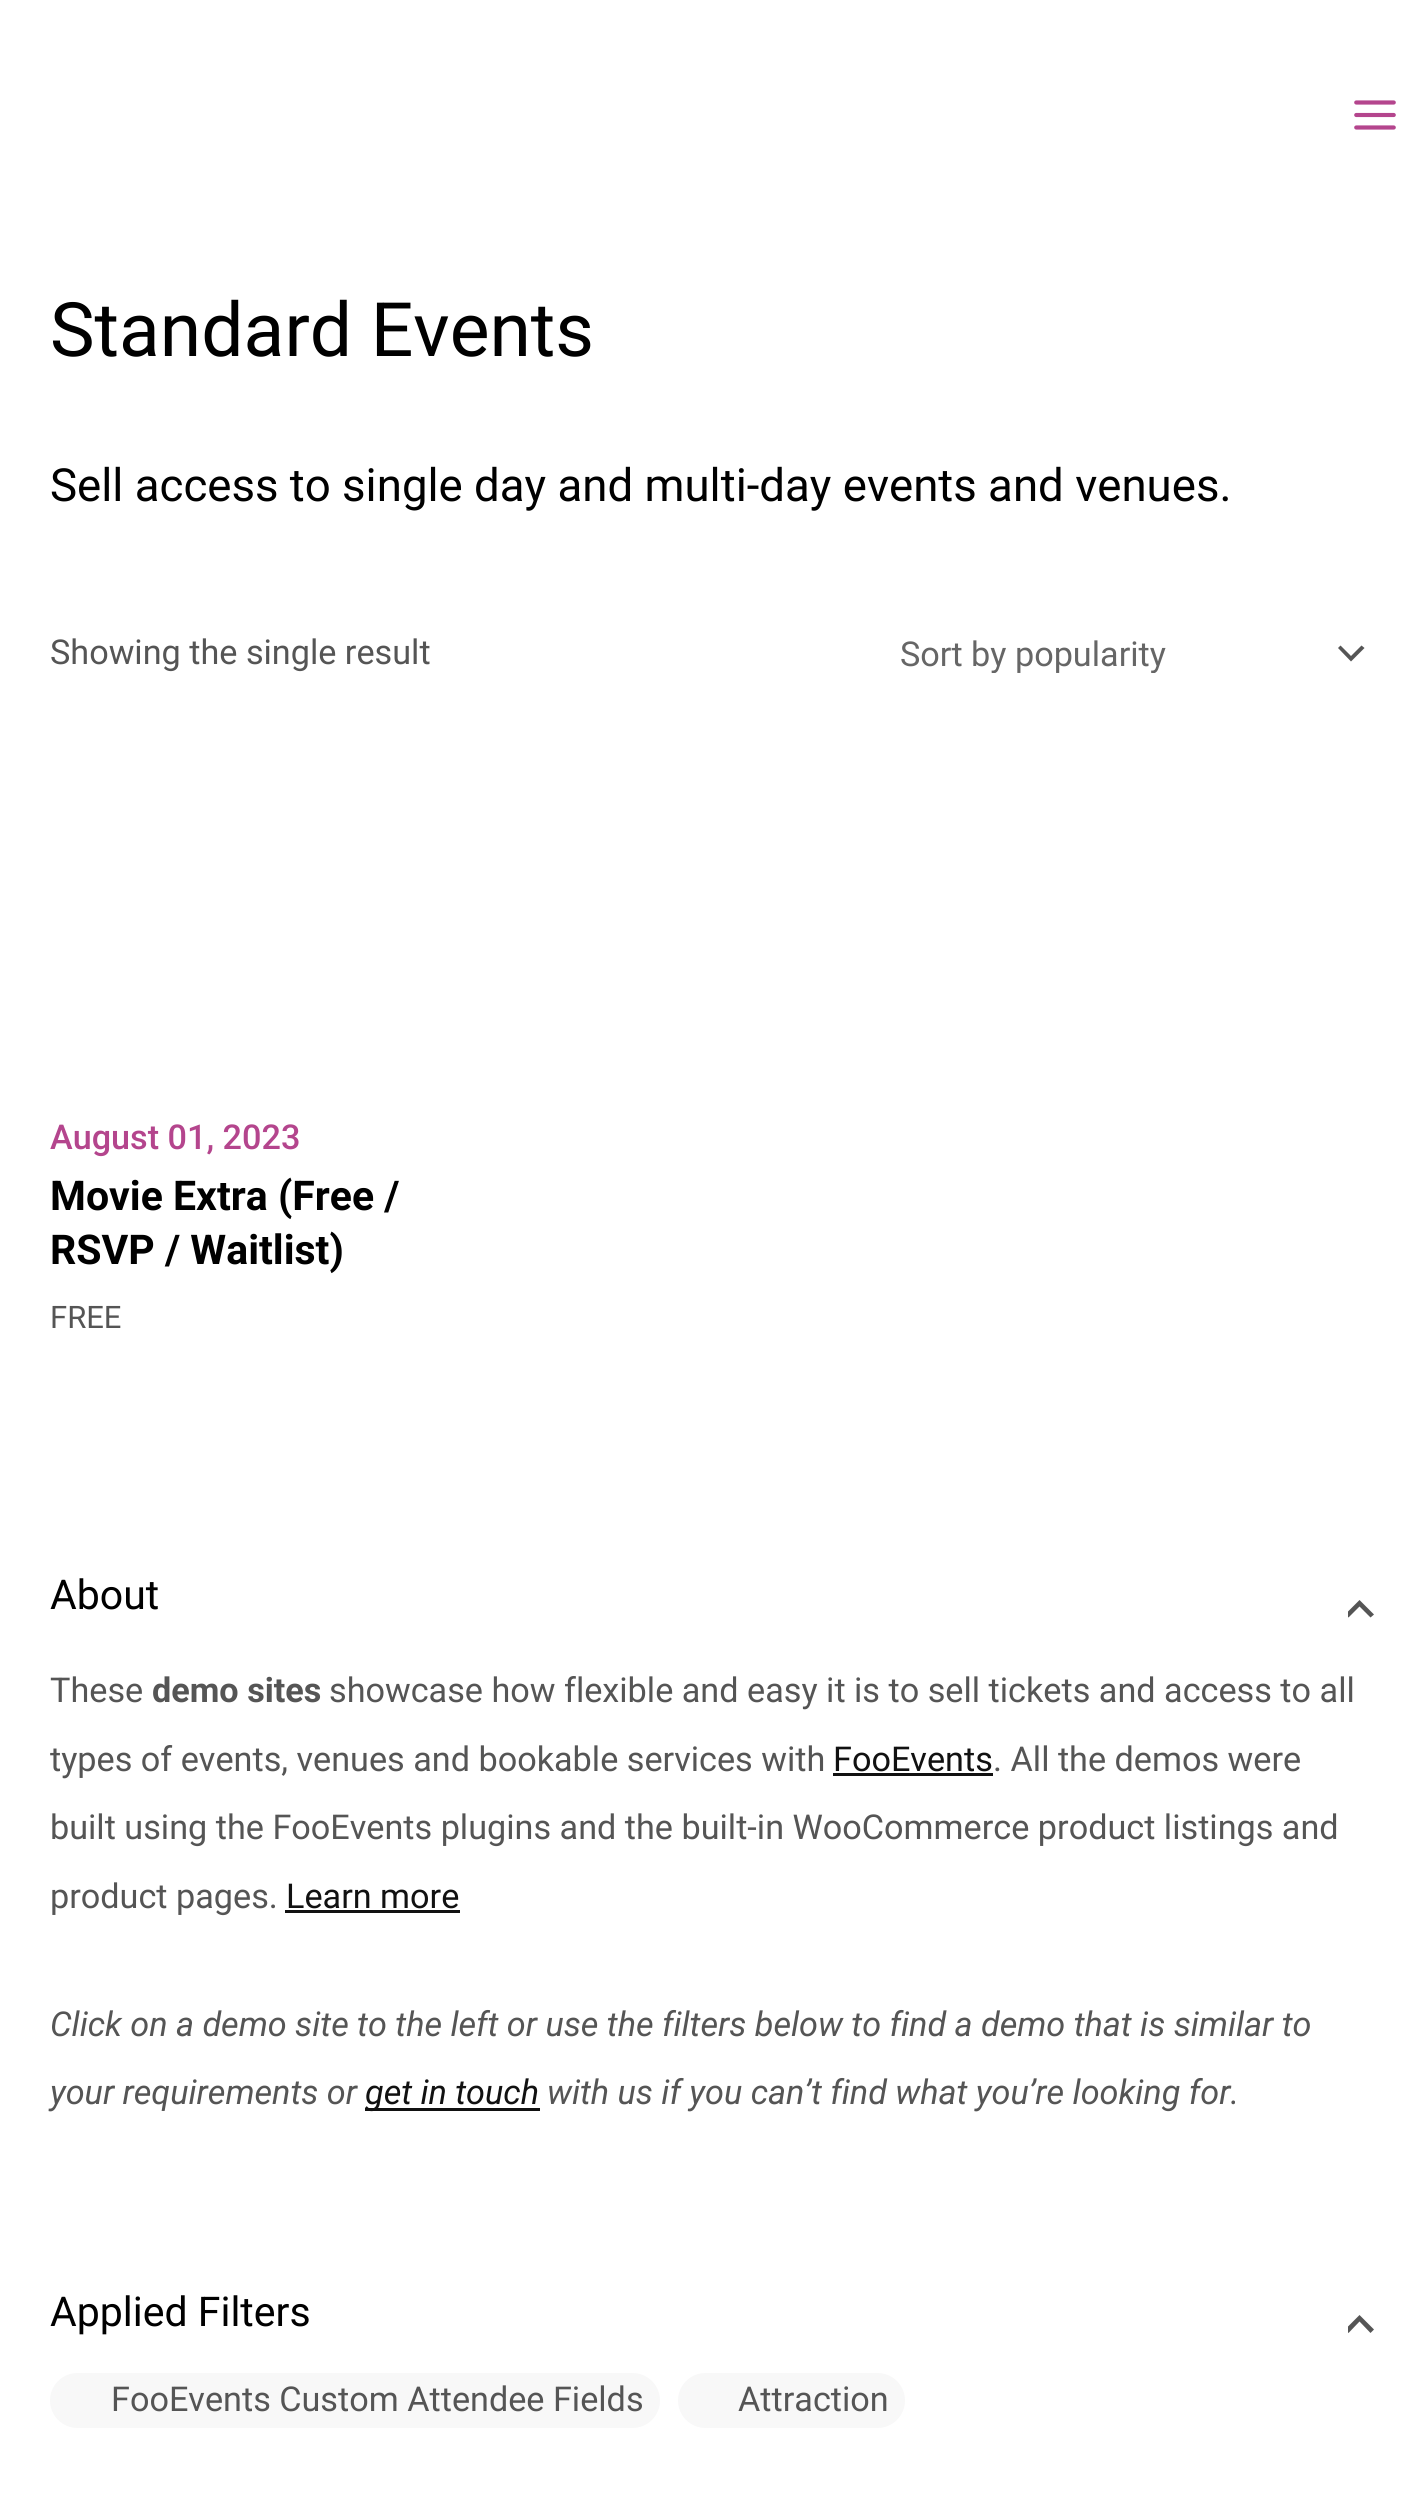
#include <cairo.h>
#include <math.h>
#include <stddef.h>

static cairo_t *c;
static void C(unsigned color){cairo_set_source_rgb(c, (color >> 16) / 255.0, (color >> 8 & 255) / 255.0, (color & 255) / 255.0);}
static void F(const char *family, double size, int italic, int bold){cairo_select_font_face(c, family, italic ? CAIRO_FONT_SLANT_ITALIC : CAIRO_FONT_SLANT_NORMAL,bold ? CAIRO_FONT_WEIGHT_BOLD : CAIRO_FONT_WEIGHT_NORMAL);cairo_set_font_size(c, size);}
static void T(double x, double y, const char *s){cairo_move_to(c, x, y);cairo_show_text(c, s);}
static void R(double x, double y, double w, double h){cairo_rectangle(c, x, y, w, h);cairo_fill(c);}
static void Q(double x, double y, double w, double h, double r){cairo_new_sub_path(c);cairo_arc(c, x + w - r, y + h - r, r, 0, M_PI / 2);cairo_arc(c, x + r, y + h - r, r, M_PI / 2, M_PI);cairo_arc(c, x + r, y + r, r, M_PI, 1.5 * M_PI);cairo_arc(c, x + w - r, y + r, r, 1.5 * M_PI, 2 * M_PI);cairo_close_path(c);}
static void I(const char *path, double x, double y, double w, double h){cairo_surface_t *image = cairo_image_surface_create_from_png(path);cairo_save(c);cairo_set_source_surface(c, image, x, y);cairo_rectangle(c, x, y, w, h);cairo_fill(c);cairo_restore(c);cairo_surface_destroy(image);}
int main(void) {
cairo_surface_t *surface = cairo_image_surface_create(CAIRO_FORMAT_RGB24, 1423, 2501);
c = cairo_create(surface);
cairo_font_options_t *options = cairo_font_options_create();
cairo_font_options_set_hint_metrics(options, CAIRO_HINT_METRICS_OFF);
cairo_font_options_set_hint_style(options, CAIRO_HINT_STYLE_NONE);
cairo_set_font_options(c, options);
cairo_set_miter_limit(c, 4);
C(0xffffff);
cairo_paint(c);
I("1.png",1354,100,42,30);
F("Roboto",75,0,0);
C(0x000000);
T(50,356,"Standard Events");
F("Roboto",45.6,0,0);
T(50,501,"Sell access to single day and multi-day events and venues.");
F("Roboto",34.2,0,0);
C(0x555555);
T(50,664,"Showing the single result");
cairo_new_path(c);
cairo_move_to(c,1338,648);
cairo_line_to(c,1351,661.5);
cairo_line_to(c,1364.5,648);
cairo_line_to(c,1361.5,645.5);
cairo_line_to(c,1351,656);
cairo_line_to(c,1340.5,645.5);
cairo_close_path(c);
cairo_fill(c);
cairo_save(c);
cairo_rectangle(c,900,633,458,40);
cairo_clip(c);
C(0x666666);
T(900,666,"Sort by popularity");
cairo_restore(c);
F("Roboto Medium",34.2,0,0);
C(0xb4458d);
T(50,1149,"August 01, 2023");
F("Roboto",41,0,1);
C(0x000000);
T(50,1210,"Movie Extra (Free /");
T(50,1264,"RSVP / Waitlist)");
F("Roboto",31,0,0);
C(0x555555);
T(50,1328,"FREE");
F("Roboto",41,0,0);
C(0x000000);
T(50,1609,"About");
cairo_save(c);
cairo_rectangle(c,1348,1588,27,42);
cairo_clip(c);
C(0x555555);
cairo_new_path(c);
cairo_move_to(c,1374,1614.5);
cairo_line_to(c,1370.5,1617.5);
cairo_line_to(c,1359.5,1606.5);
cairo_line_to(c,1348.5,1617.5);
cairo_line_to(c,1345,1614.5);
cairo_line_to(c,1359.5,1600);
cairo_close_path(c);
cairo_fill(c);
cairo_restore(c);
F("Roboto",34.2,0,0);
C(0x555555);
T(50,1702,"These");
F("Roboto",34.2,0,1);
T(152,1702,"demo sites");
F("Roboto",34.2,0,0);
T(329,1702,"showcase how flexible and easy it is to sell tickets and access to all");
T(50,1771,"types of events, venues and bookable services with");
C(0x111111);
T(833,1771,"FooEvents");
R(833,1773,160,3);
C(0x555555);
T(993,1771,". All the demos were");
T(50,1839,"built using the FooEvents plugins and the built-in WooCommerce product listings and");
T(50,1908,"product pages.");
C(0x111111);
T(286,1908,"Learn more");
R(285,1910,175,3);
F("Roboto",34.2,1,0);
C(0x555555);
T(50,2036,"Click on a demo site to the left or use the filters below to find a demo that is similar to");
T(50,2104,"your requirements or");
C(0x111111);
R(365,2108,175,3);
T(365,2104,"get in touch");
C(0x555555);
T(547,2104,"with us if you can’t find what you’re looking for.");
F("Roboto",41,0,0);
C(0x000000);
T(50,2326,"Applied Filters");
cairo_save(c);
cairo_rectangle(c,1348,2305,27,43);
cairo_clip(c);
C(0x555555);
cairo_new_path(c);
cairo_move_to(c,1374,2329.5);
cairo_line_to(c,1370.5,2333);
cairo_line_to(c,1359.5,2321.5);
cairo_line_to(c,1348.5,2333);
cairo_line_to(c,1345,2329.5);
cairo_line_to(c,1359.5,2315);
cairo_close_path(c);
cairo_fill(c);
cairo_restore(c);
C(0xf8f8f8);
Q(50,2373,610,55,27.5);
cairo_fill(c);
F("Roboto",34.2,0,0);
C(0x555555);
T(111,2411,"FooEvents Custom Attendee Fields");
C(0xf8f8f8);
Q(678,2373,227,55,27.5);
cairo_fill(c);
C(0x555555);
T(738,2411,"Attraction");
cairo_surface_write_to_png(surface, "o.png");
cairo_font_options_destroy(options);
cairo_destroy(c);
cairo_surface_destroy(surface);
return 0;
}
